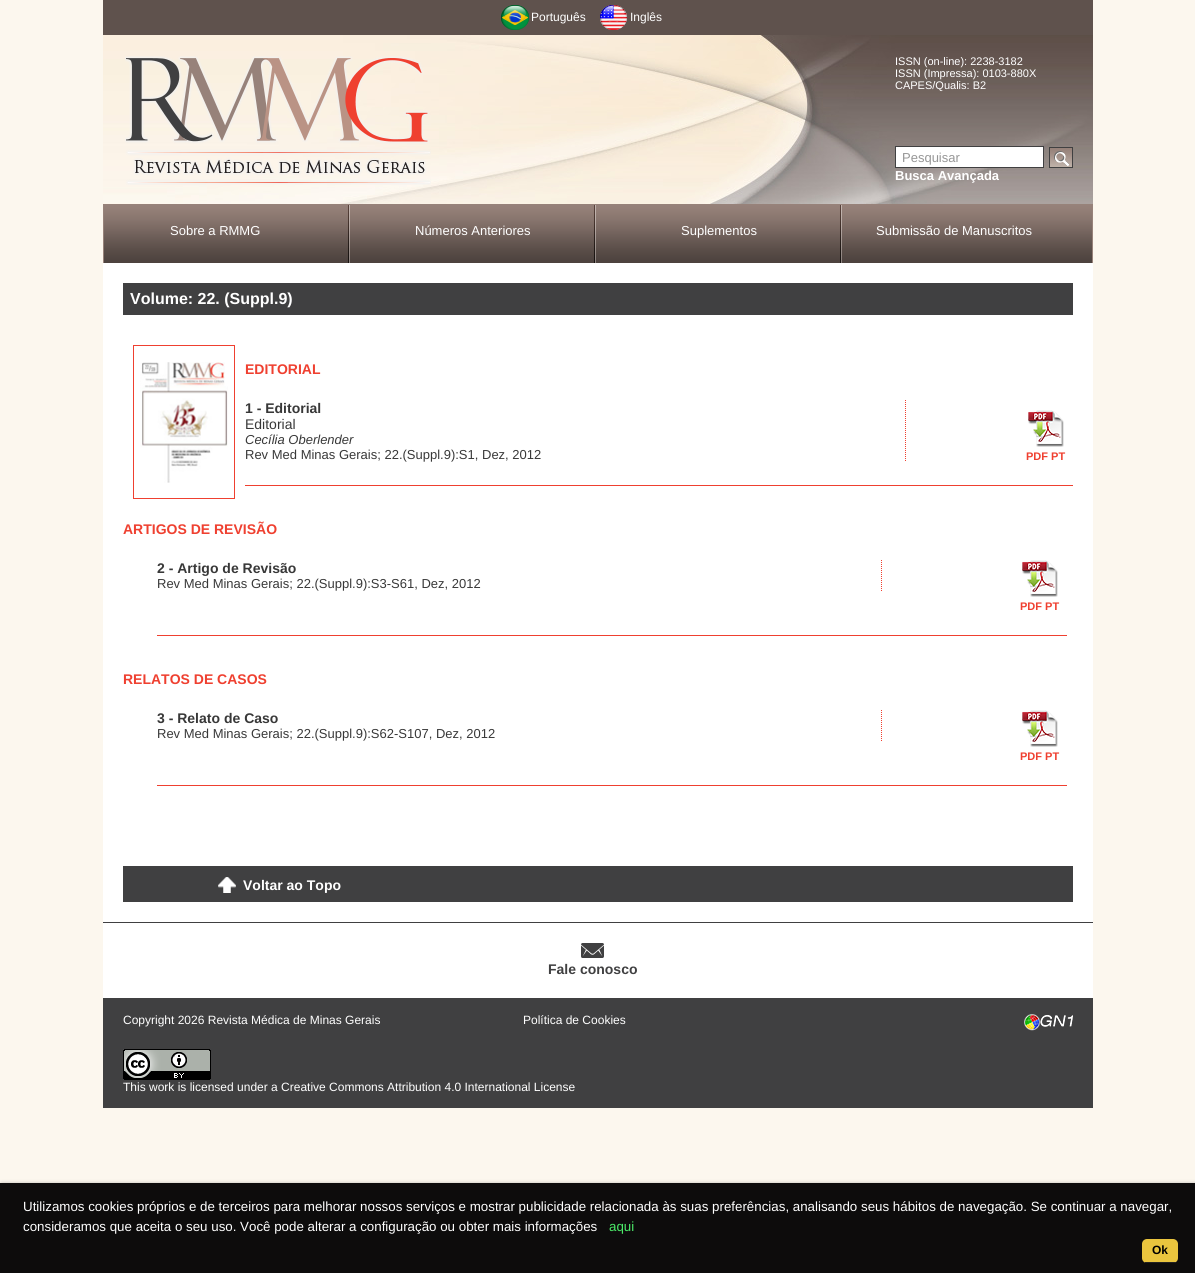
#include <cairo.h>
#include <math.h>
#include <stddef.h>

static cairo_t *c;
static void C(unsigned color){cairo_set_source_rgb(c, (color >> 16) / 255.0, (color >> 8 & 255) / 255.0, (color & 255) / 255.0);}
static void F(const char *family, double size, int italic, int bold){cairo_select_font_face(c, family, italic ? CAIRO_FONT_SLANT_ITALIC : CAIRO_FONT_SLANT_NORMAL,bold ? CAIRO_FONT_WEIGHT_BOLD : CAIRO_FONT_WEIGHT_NORMAL);cairo_set_font_size(c, size);}
static void T(double x, double y, const char *s){cairo_move_to(c, x, y);cairo_show_text(c, s);}
static void R(double x, double y, double w, double h){cairo_rectangle(c, x, y, w, h);cairo_fill(c);}
static void Q(double x, double y, double w, double h, double r){cairo_new_sub_path(c);cairo_arc(c, x + w - r, y + h - r, r, 0, M_PI / 2);cairo_arc(c, x + r, y + h - r, r, M_PI / 2, M_PI);cairo_arc(c, x + r, y + r, r, M_PI, 1.5 * M_PI);cairo_arc(c, x + w - r, y + r, r, 1.5 * M_PI, 2 * M_PI);cairo_close_path(c);}
static void S(double x, double y, double w, double h, double r, double blur, double alpha){cairo_push_group_with_content(c, CAIRO_CONTENT_ALPHA);cairo_set_operator(c, CAIRO_OPERATOR_SOURCE);for (int i = 15; i >= -15 && fmin(w, h) + blur * i / 3 > 0; i -= 2) {double e = blur * i / 6;cairo_set_source_rgba(c, 0, 0, 0, alpha * erfc((i - 1) / 8.5) / 2);Q(x - e, y - e, w + 2 * e, h + 2 * e, fmax(0, fmin(r + e + blur * .6, fmin(w, h) / 2 + e)));cairo_fill(c);}cairo_pattern_t *soft = cairo_pop_group(c);cairo_mask(c, soft);cairo_pattern_destroy(soft);}
static void I(const char *path, double x, double y, double w, double h){cairo_surface_t *image = cairo_image_surface_create_from_png(path);cairo_save(c);cairo_set_source_surface(c, image, x, y);cairo_rectangle(c, x, y, w, h);cairo_fill(c);cairo_restore(c);cairo_surface_destroy(image);}
int main(void) {
cairo_surface_t *surface = cairo_image_surface_create(CAIRO_FORMAT_RGB24, 1195, 1273);
c = cairo_create(surface);
cairo_font_options_t *options = cairo_font_options_create();
cairo_font_options_set_hint_metrics(options, CAIRO_HINT_METRICS_OFF);
cairo_font_options_set_hint_style(options, CAIRO_HINT_STYLE_NONE);
cairo_set_font_options(c, options);
cairo_set_miter_limit(c, 4);
C(0xfcf7ee);
cairo_paint(c);
C(0x5f524d);
R(103,0,990,35);
I("1.png",501,5,28,25);
F("Liberation Sans",12,0,0);
C(0xffffff);
T(531,21,"Português");
I("2.png",600,5,27,25);
T(630,21,"Inglês");
I("3.png",103,35,990,169);
I("4.png",125,56,306,129);
F("Liberation Sans",11,0,0);
T(895,65,"ISSN (on-line): 2238-3182");
T(895,77,"ISSN (Impressa): 0103-880X");
T(895,89,"CAPES/Qualis: B2");
cairo_rectangle(c,895.5,146.5,148,21);
cairo_fill_preserve(c);
C(0x404041);
cairo_set_line_width(c,1);
cairo_stroke(c);
F("Liberation Sans",13,0,0);
C(0x969696);
T(902,162,"Pesquisar");
I("5.png",1050,148,22,19);
cairo_rectangle(c,1049.5,147.5,23,20);
C(0x404041);
cairo_stroke(c);
F("Liberation Sans",13,0,1);
C(0xffffff);
T(895,180,"Busca Avançada");
I("6.png",104,205,988,58);
cairo_rectangle(c,103.5,204.5,989,59);
C(0x97827a);
cairo_stroke(c);
I("7.png",348,205,2,58);
F("Liberation Sans",13,0,0);
C(0xffffff);
T(170,235,"Sobre a RMMG");
I("7.png",594,205,2,58);
T(415,235,"Números Anteriores");
I("7.png",840,205,2,58);
T(681,235,"Suplementos");
T(876,235,"Submissão de Manuscritos");
R(103,263,990,659);
C(0x404041);
R(123,283,950,32);
F("Liberation Sans",16,0,1);
C(0xffffff);
T(130,304,"Volume: 22. (Suppl.9)");
cairo_rectangle(c,133.5,345.5,101,153);
C(0xef4030);
cairo_stroke(c);
I("8.png",140,362,88,121);
F("Liberation Sans",14,0,1);
T(245,374,"EDITORIAL");
R(245,485,828,1);
cairo_new_path(c);
cairo_move_to(c,905.5,400);
cairo_line_to(c,905.5,462);
cairo_set_dash(c,(double[]){1,1},2,0);
cairo_stroke(c);
C(0x383838);
T(245,413,"1 - Editorial");
F("Liberation Sans",14,0,0);
T(245,429,"Editorial");
F("Liberation Sans",13,1,0);
T(245,444,"Cecília Oberlender");
F("Liberation Sans",13,0,0);
T(245,459,"Rev Med Minas Gerais; 22.(Suppl.9):S1, Dez, 2012");
I("9.png",1028,410,36,37);
F("Liberation Sans",11,0,1);
C(0xef4030);
T(1026,460,"PDF PT");
F("Liberation Sans",14,0,1);
T(123,534,"ARTIGOS DE REVISÃO");
R(157,635,910,1);
cairo_new_path(c);
cairo_move_to(c,881.5,560);
cairo_line_to(c,881.5,591);
cairo_stroke(c);
C(0x383838);
T(157,573,"2 - Artigo de Revisão");
F("Liberation Sans",13,0,0);
T(157,588,"Rev Med Minas Gerais; 22.(Suppl.9):S3-S61, Dez, 2012");
I("9.png",1022,560,36,37);
F("Liberation Sans",11,0,1);
C(0xef4030);
T(1020,610,"PDF PT");
F("Liberation Sans",14,0,1);
T(123,684,"RELATOS DE CASOS");
R(157,785,910,1);
cairo_new_path(c);
cairo_move_to(c,881.5,710);
cairo_line_to(c,881.5,741);
cairo_stroke(c);
C(0x383838);
T(157,723,"3 - Relato de Caso");
F("Liberation Sans",13,0,0);
T(157,738,"Rev Med Minas Gerais; 22.(Suppl.9):S62-S107, Dez, 2012");
I("9.png",1022,710,36,37);
F("Liberation Sans",11,0,1);
C(0xef4030);
T(1020,760,"PDF PT");
C(0x404041);
R(123,866,950,36);
I("10.png",218,877,18,16);
F("Liberation Sans",14,0,1);
C(0xffffff);
T(243,890,"Voltar ao Topo");
R(103,923,990,75);
C(0x404041);
R(103,922,990,1);
I("11.png",581,943,23,15);
T(548,974,"Fale conosco");
R(103,998,990,110);
F("Liberation Sans",12,0,0);
C(0xffffff);
T(123,1024,"Copyright 2026 Revista Médica de Minas Gerais");
T(523,1024,"Política de Cookies");
I("12.png",1024,1014,49,17);
I("13.png",123,1049,88,31);
T(123,1091,"This work is licensed under a Creative Commons Attribution 4.0 International License");
C(0x000000);
S(2,1185,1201,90,0,2.5,.6);
C(0x0d0c0c);
R(0,1183,1195,90);
F("Liberation Sans",13.33,0,0);
C(0xffffff);
T(23,1211,"Utilizamos cookies próprios e de terceiros para melhorar nossos serviços e mostrar publicidade relacionada às suas preferências, analisando seus hábitos de navegação. Se continuar a navegar,");
T(23,1231,"consideramos que aceita o seu uso. Você pode alterar a configuração ou obter mais informações");
C(0x4bec69);
T(609,1231,"aqui");
C(0xeac53e);
Q(1142,1239,36,24,5);
cairo_fill(c);
C(0x222222);
R(1145,1262,31,1);
F("Liberation Sans",12,0,1);
C(0x000000);
T(1152,1254,"Ok");
cairo_surface_write_to_png(surface, "o.png");
cairo_font_options_destroy(options);
cairo_destroy(c);
cairo_surface_destroy(surface);
return 0;
}
